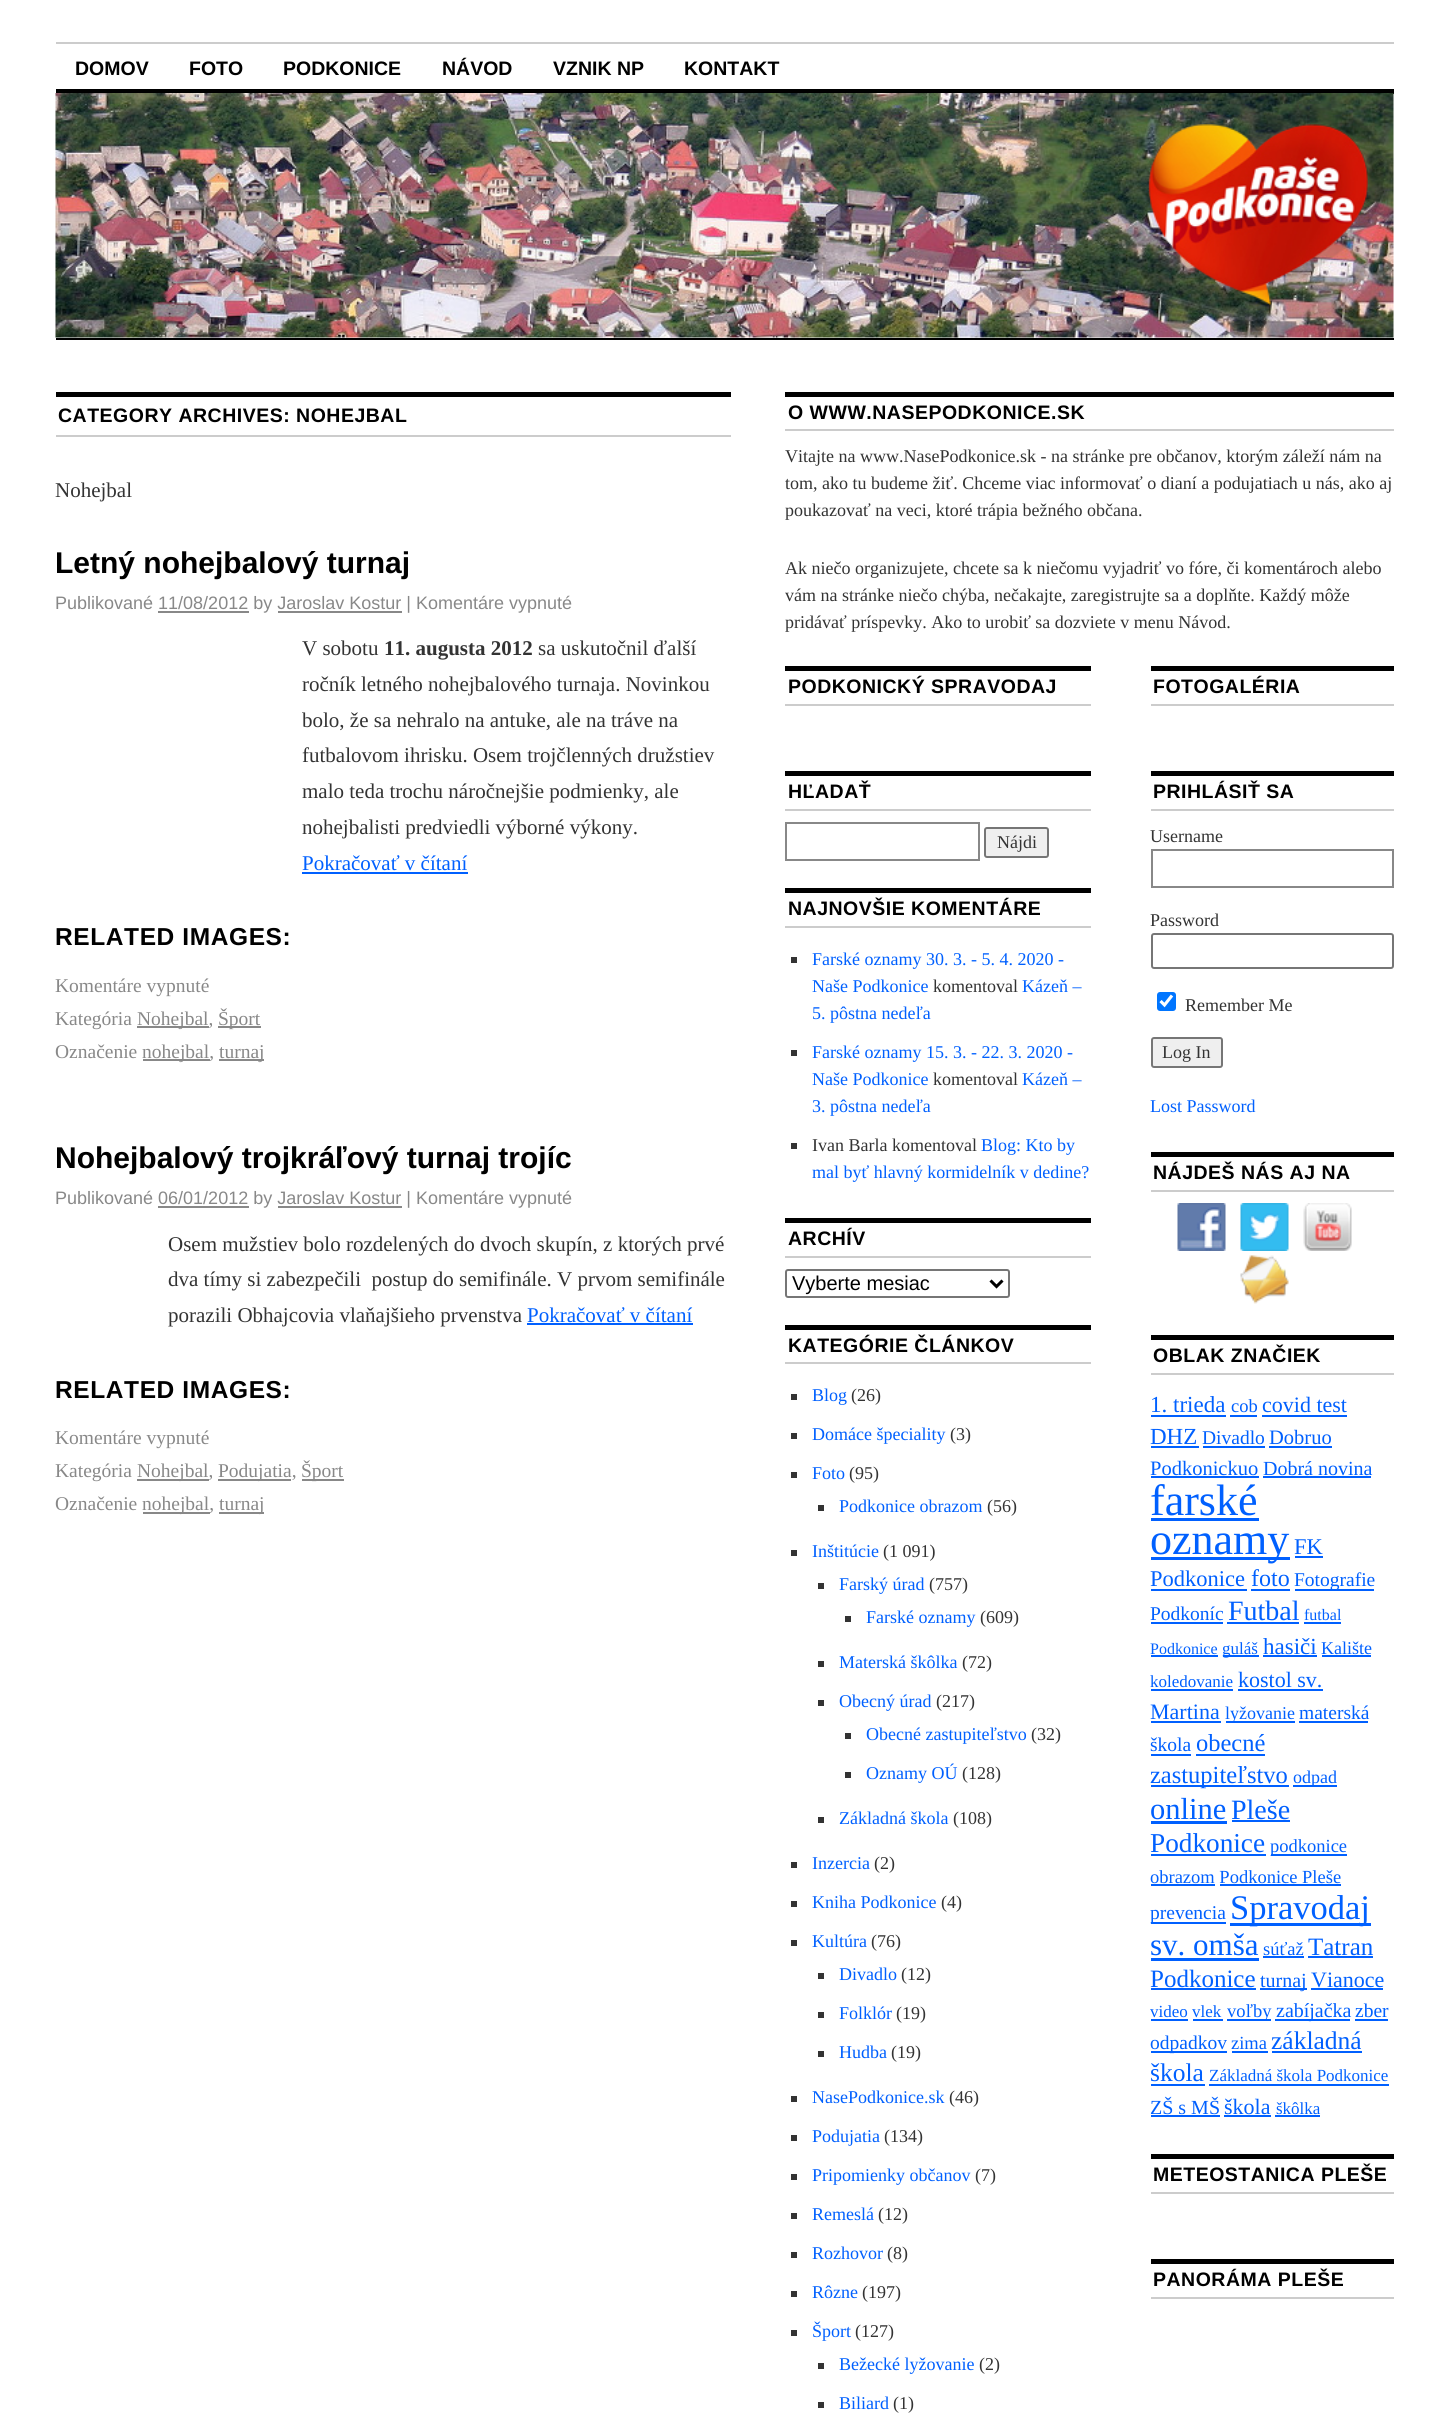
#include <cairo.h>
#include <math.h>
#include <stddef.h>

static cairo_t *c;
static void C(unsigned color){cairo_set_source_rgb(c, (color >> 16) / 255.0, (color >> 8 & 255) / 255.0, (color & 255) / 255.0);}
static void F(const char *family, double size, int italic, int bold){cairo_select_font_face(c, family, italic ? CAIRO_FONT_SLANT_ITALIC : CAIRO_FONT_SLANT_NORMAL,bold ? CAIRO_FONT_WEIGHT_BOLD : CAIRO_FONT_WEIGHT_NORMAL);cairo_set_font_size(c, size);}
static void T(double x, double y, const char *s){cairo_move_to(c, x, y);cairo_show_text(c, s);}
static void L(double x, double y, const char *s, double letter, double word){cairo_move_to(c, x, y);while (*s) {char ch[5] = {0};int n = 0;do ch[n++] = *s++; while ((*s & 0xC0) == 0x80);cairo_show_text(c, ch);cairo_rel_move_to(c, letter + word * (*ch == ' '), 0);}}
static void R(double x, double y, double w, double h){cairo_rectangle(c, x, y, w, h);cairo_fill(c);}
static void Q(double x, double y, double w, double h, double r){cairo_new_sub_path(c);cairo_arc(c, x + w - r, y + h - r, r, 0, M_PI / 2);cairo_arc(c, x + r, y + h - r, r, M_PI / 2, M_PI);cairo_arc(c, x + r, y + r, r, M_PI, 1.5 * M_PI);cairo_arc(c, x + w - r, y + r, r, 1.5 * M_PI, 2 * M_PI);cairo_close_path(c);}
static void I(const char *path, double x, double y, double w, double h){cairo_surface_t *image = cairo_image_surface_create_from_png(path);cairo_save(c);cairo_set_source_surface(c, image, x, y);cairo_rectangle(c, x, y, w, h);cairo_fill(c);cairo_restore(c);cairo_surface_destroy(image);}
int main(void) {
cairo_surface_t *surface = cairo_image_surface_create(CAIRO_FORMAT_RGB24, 1448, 2434);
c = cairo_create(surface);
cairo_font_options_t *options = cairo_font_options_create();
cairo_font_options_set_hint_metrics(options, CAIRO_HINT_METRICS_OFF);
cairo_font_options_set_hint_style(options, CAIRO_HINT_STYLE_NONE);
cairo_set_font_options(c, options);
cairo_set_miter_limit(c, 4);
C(0xffffff);
cairo_paint(c);
C(0xcccccc);
R(56,42,1338,2);
F("Liberation Sans",19.5,0,1);
C(0x000000);
T(75,75,"DOMOV");
T(189,75,"FOTO");
T(283,75,"PODKONICE");
T(442,75,"NÁVOD");
T(553,75,"VZNIK NP");
T(684,75,"KONTAKT");
R(56,89,1338,5);
I("1.png",55,93,1339,245);
R(56,338,1338,2);
R(56,392,675,5);
C(0xcccccc);
R(56,435,675,2);
C(0x000000);
L(58,422,"CATEGORY ARCHIVES: NOHEJBAL",.5,0);
F("Liberation Serif",21,0,0);
C(0x333333);
T(55,497,"Nohejbal");
F("Liberation Sans",30,0,1);
C(0x000000);
T(55,573,"Letný nohejbalový turnaj");
F("Liberation Sans",18,0,0);
C(0x888888);
T(55,609,"Publikované 11/08/2012 by Jaroslav Kostur | Komentáre vypnuté");
R(158,611,91,2);
R(278,611,124,2);
F("Liberation Serif",21,0,0);
C(0x333333);
T(302,655,"V sobotu");
F("Liberation Serif",21,0,1);
T(384,655,"11. augusta 2012");
F("Liberation Serif",21,0,0);
T(538,655,"sa uskutočnil ďalší");
T(302,691,"ročník letného nohejbalového turnaja. Novinkou");
T(302,727,"bolo, že sa nehralo na antuke, ale na tráve na");
T(302,762,"futbalovom ihrisku. Osem trojčlenných družstiev");
T(302,798,"malo teda trochu náročnejšie podmienky, ale");
T(302,834,"nohejbalisti predviedli výborné výkony.");
C(0x0060ff);
T(302,870,"Pokračovať v čítaní");
R(302,872,166,2);
F("Liberation Sans",24.5,0,1);
C(0x000000);
L(55,945,"RELATED IMAGES:",.6,0);
F("Liberation Serif",19.5,0,0);
C(0x888888);
T(55,992,"Komentáre vypnuté");
T(55,1025,"Kategória");
R(137,1026,72,2);
T(137,1025,"Nohejbal,");
R(218,1026,43,2);
T(218,1025,"Šport");
T(55,1058,"Označenie");
R(143,1059,67,2);
T(142,1058,"nohejbal,");
R(219,1059,45,2);
T(219,1058,"turnaj");
F("Liberation Sans",30,0,1);
C(0x000000);
T(55,1168,"Nohejbalový trojkráľový turnaj trojíc");
F("Liberation Sans",18,0,0);
C(0x888888);
T(55,1204,"Publikované 06/01/2012 by Jaroslav Kostur | Komentáre vypnuté");
R(158,1206,91,2);
R(278,1206,124,2);
F("Liberation Serif",21,0,0);
C(0x333333);
T(168,1251,"Osem mužstiev bolo rozdelených do dvoch skupín, z ktorých prvé");
T(168,1286,"dva tímy si zabezpečili  postup do semifinále. V prvom semifinále");
T(168,1322,"porazili Obhajcovia vlaňajšieho prvenstva");
C(0x0060ff);
T(527,1322,"Pokračovať v čítaní");
R(527,1323,166,2);
F("Liberation Sans",24.5,0,1);
C(0x000000);
L(55,1398,"RELATED IMAGES:",.6,0);
F("Liberation Serif",19.5,0,0);
C(0x888888);
T(55,1444,"Komentáre vypnuté");
T(55,1477,"Kategória");
R(137,1479,72,2);
T(137,1477,"Nohejbal,");
R(218,1479,73,2);
T(218,1477,"Podujatia,");
R(302,1479,42,2);
T(301,1477,"Šport");
T(55,1510,"Označenie");
R(143,1512,67,2);
T(142,1510,"nohejbal,");
R(219,1512,45,2);
T(219,1510,"turnaj");
C(0x000000);
R(785,392,609,5);
C(0xcccccc);
R(785,429,609,2);
F("Liberation Sans",19.5,0,1);
C(0x000000);
L(788,419,"O WWW.NASEPODKONICE.SK",.5,0);
F("Liberation Serif",18,0,0);
C(0x333333);
T(785,462,"Vitajte na www.NasePodkonice.sk - na stránke pre občanov, ktorým záleží nám na");
T(785,489,"tom, ako tu budeme žiť. Chceme viac informovať o dianí a podujatiach u nás, ako aj");
T(785,516,"poukazovať na veci, ktoré trápia bežného občana.");
T(785,574,"Ak niečo organizujete, chcete sa k niečomu vyjadriť vo fóre, či komentároch alebo");
T(785,601,"vám na stránke niečo chýba, nečakajte, zaregistrujte sa a doplňte. Každý môže");
T(785,628,"pridávať príspevky. Ako to urobiť sa dozviete v menu Návod.");
C(0x000000);
R(785,666,306,5);
C(0xcccccc);
R(785,704,306,2);
F("Liberation Sans",19.5,0,1);
C(0x000000);
L(788,693,"PODKONICKÝ SPRAVODAJ",.5,0);
R(785,771,306,5);
C(0xcccccc);
R(785,809,306,2);
C(0x000000);
L(788,798,"HĽADAŤ",.5,0);
cairo_rectangle(c,786,823,193,37);
C(0x888888);
cairo_stroke(c);
C(0xefefef);
Q(985,828,63,29,2);
cairo_fill_preserve(c);
C(0x767676);
cairo_stroke(c);
F("Liberation Serif",18,0,0);
C(0x333333);
T(997,848,"Nájdi");
C(0x000000);
R(785,888,306,5);
C(0xcccccc);
R(785,926,306,2);
F("Liberation Sans",19.5,0,1);
C(0x000000);
L(788,915,"NAJNOVŠIE KOMENTÁRE",.5,0);
C(0x333333);
R(791,957,6,6);
F("Liberation Serif",18,0,0);
C(0x0060ff);
T(812,965,"Farské oznamy 30. 3. - 5. 4. 2020 -");
T(812,992,"Naše Podkonice");
C(0x333333);
T(933,992,"komentoval");
C(0x0060ff);
T(1022,992,"Kázeň –");
T(812,1019,"5. pôstna nedeľa");
C(0x333333);
R(791,1050,6,6);
C(0x0060ff);
T(812,1058,"Farské oznamy 15. 3. - 22. 3. 2020 -");
T(812,1085,"Naše Podkonice");
C(0x333333);
T(933,1085,"komentoval");
C(0x0060ff);
T(1022,1085,"Kázeň –");
T(812,1112,"3. pôstna nedeľa");
C(0x333333);
R(791,1143,6,6);
T(812,1151,"Ivan Barla komentoval");
C(0x0060ff);
T(981,1151,"Blog: Kto by");
T(812,1178,"mal byť hlavný kormidelník v dedine?");
C(0x000000);
R(785,1218,306,5);
C(0xcccccc);
R(785,1256,306,2);
F("Liberation Sans",19.5,0,1);
C(0x000000);
L(788,1245,"ARCHÍV",.5,0);
Q(786,1270,223,27,2);
C(0x767676);
cairo_stroke(c);
cairo_new_path(c);
cairo_move_to(c,990.5,1280.5);
cairo_line_to(c,996.5,1286.5);
cairo_line_to(c,1002.5,1280.5);
C(0x000000);
cairo_set_line_width(c,3);
cairo_stroke(c);
F("Liberation Sans",20,0,0);
T(792,1290,"Vyberte mesiac");
R(785,1325,306,5);
C(0xcccccc);
R(785,1362,306,2);
F("Liberation Sans",19.5,0,1);
C(0x000000);
L(788,1352,"KATEGÓRIE ČLÁNKOV",.5,0);
C(0x333333);
R(791,1394,6,6);
F("Liberation Serif",18,0,0);
C(0x0060ff);
T(812,1401,"Blog");
C(0x333333);
T(851,1401,"(26)");
R(791,1433,6,6);
C(0x0060ff);
T(812,1440,"Domáce špeciality");
C(0x333333);
T(950,1440,"(3)");
R(791,1472,6,6);
C(0x0060ff);
T(812,1479,"Foto");
C(0x333333);
T(849,1479,"(95)");
R(818,1505,6,6);
C(0x0060ff);
T(839,1512,"Podkonice obrazom");
C(0x333333);
T(987,1512,"(56)");
R(791,1550,6,6);
C(0x0060ff);
T(812,1557,"Inštitúcie");
C(0x333333);
T(883,1557,"(1 091)");
R(818,1583,6,6);
C(0x0060ff);
T(839,1590,"Farský úrad");
C(0x333333);
T(929,1590,"(757)");
R(845,1616,6,6);
C(0x0060ff);
T(866,1623,"Farské oznamy");
C(0x333333);
T(980,1623,"(609)");
R(818,1661,6,6);
C(0x0060ff);
T(839,1668,"Materská škôlka");
C(0x333333);
T(962,1668,"(72)");
R(818,1700,6,6);
C(0x0060ff);
T(839,1707,"Obecný úrad");
C(0x333333);
T(936,1707,"(217)");
R(845,1733,6,6);
C(0x0060ff);
T(866,1740,"Obecné zastupiteľstvo");
C(0x333333);
T(1031,1740,"(32)");
R(845,1772,6,6);
C(0x0060ff);
T(866,1779,"Oznamy OÚ");
C(0x333333);
T(962,1779,"(128)");
R(818,1817,6,6);
C(0x0060ff);
T(839,1824,"Základná škola");
C(0x333333);
T(953,1824,"(108)");
R(791,1862,6,6);
C(0x0060ff);
T(812,1869,"Inzercia");
C(0x333333);
T(874,1869,"(2)");
R(791,1901,6,6);
C(0x0060ff);
T(812,1908,"Kniha Podkonice");
C(0x333333);
T(941,1908,"(4)");
R(791,1940,6,6);
C(0x0060ff);
T(812,1947,"Kultúra");
C(0x333333);
T(871,1947,"(76)");
R(818,1973,6,6);
C(0x0060ff);
T(839,1980,"Divadlo");
C(0x333333);
T(901,1980,"(12)");
R(818,2012,6,6);
C(0x0060ff);
T(839,2019,"Folklór");
C(0x333333);
T(896,2019,"(19)");
R(818,2051,6,6);
C(0x0060ff);
T(839,2058,"Hudba");
C(0x333333);
T(891,2058,"(19)");
R(791,2096,6,6);
C(0x0060ff);
T(812,2103,"NasePodkonice.sk");
C(0x333333);
T(949,2103,"(46)");
R(791,2135,6,6);
C(0x0060ff);
T(812,2142,"Podujatia");
C(0x333333);
T(884,2142,"(134)");
R(791,2174,6,6);
C(0x0060ff);
T(812,2181,"Pripomienky občanov");
C(0x333333);
T(975,2181,"(7)");
R(791,2213,6,6);
C(0x0060ff);
T(812,2220,"Remeslá");
C(0x333333);
T(878,2220,"(12)");
R(791,2252,6,6);
C(0x0060ff);
T(812,2259,"Rozhovor");
C(0x333333);
T(887,2259,"(8)");
R(791,2291,6,6);
C(0x0060ff);
T(812,2298,"Rôzne");
C(0x333333);
T(862,2298,"(197)");
R(791,2330,6,6);
C(0x0060ff);
T(812,2337,"Šport");
C(0x333333);
T(855,2337,"(127)");
R(818,2363,6,6);
C(0x0060ff);
T(839,2370,"Bežecké lyžovanie");
C(0x333333);
T(979,2370,"(2)");
R(818,2402,6,6);
C(0x0060ff);
T(839,2409,"Biliard");
C(0x333333);
T(893,2409,"(1)");
C(0x000000);
R(1151,666,243,5);
C(0xcccccc);
R(1151,704,243,2);
F("Liberation Sans",19.5,0,1);
C(0x000000);
L(1153,693,"FOTOGALÉRIA",.5,0);
R(1151,771,243,5);
C(0xcccccc);
R(1151,809,243,2);
C(0x000000);
L(1153,798,"PRIHLÁSIŤ SA",.5,0);
F("Liberation Serif",18,0,0);
C(0x333333);
T(1150,842,"Username");
cairo_rectangle(c,1152,850,241,37);
C(0x888888);
cairo_set_line_width(c,2);
cairo_stroke(c);
C(0x333333);
T(1150,926,"Password");
Q(1152,934,241,34,2);
C(0x767676);
cairo_stroke(c);
C(0x0075ff);
Q(1157,992,19,19,3);
cairo_fill(c);
cairo_new_path(c);
cairo_move_to(c,1160.5,1001);
cairo_line_to(c,1164.5,1005);
cairo_line_to(c,1172,995.5);
C(0xffffff);
cairo_set_line_width(c,3.1);
cairo_stroke(c);
C(0x333333);
T(1185,1011,"Remember Me");
C(0xefefef);
Q(1152,1038,70,29,2);
cairo_fill_preserve(c);
C(0x767676);
cairo_set_line_width(c,2);
cairo_stroke(c);
C(0x333333);
T(1162,1058,"Log In");
C(0x0060ff);
T(1150,1112,"Lost Password");
C(0x000000);
R(1151,1152,243,5);
C(0xcccccc);
R(1151,1190,243,2);
F("Liberation Sans",19.5,0,1);
C(0x000000);
L(1153,1179,"NÁJDEŠ NÁS AJ NA",.5,0);
I("2.png",1177,1203,49,48);
I("3.png",1240,1203,49,48);
I("4.png",1303,1203,49,48);
I("5.png",1240,1255,49,49);
R(1151,1335,243,5);
C(0xcccccc);
R(1151,1373,243,2);
C(0x000000);
L(1153,1362,"OBLAK ZNAČIEK",.5,0);
F("Liberation Serif",23,0,0);
C(0x0060ff);
T(1150,1412,"1. trieda");
R(1151,1415,75,2);
F("Liberation Serif",18.5,0,0);
T(1231,1412,"cob");
R(1230,1415,27,2);
F("Liberation Serif",22,0,0);
T(1262,1412,"covid test");
R(1262,1415,85,2);
F("Liberation Serif",23,0,0);
T(1150,1444,"DHZ");
R(1151,1446,48,2);
F("Liberation Serif",19.5,0,0);
T(1202,1444,"Divadlo");
R(1203,1446,62,2);
F("Liberation Serif",20.5,0,0);
T(1269,1444,"Dobruo");
R(1269,1446,63,2);
T(1150,1475,"Podkonickuo");
R(1151,1476,108,2);
F("Liberation Serif",20,0,0);
T(1263,1475,"Dobrá novina");
R(1263,1476,108,2);
F("Liberation Serif",44,0,0);
T(1150,1515,"farské");
R(1151,1518,108,3);
R(1151,1557,139,3);
T(1150,1554,"oznamy");
F("Liberation Serif",22.5,0,0);
T(1294,1554,"FK");
R(1295,1556,28,2);
T(1150,1586,"Podkonice");
R(1151,1589,96,2);
F("Liberation Serif",24,0,0);
T(1251,1586,"foto");
R(1251,1589,39,2);
R(1295,1589,79,2);
F("Liberation Serif",19.5,0,0);
T(1294,1586,"Fotografie");
T(1150,1620,"Podkoníc");
R(1151,1622,72,2);
F("Liberation Serif",28,0,0);
T(1228,1620,"Futbal");
R(1227,1622,72,2);
F("Liberation Serif",16,0,0);
T(1304,1620,"futbal");
R(1304,1622,37,2);
T(1150,1654,"Podkonice");
R(1151,1655,67,2);
R(1223,1655,36,2);
F("Liberation Serif",17,0,0);
T(1222,1654,"guláš");
F("Liberation Serif",23,0,0);
T(1263,1654,"hasiči");
R(1263,1655,54,2);
F("Liberation Serif",18,0,0);
T(1321,1654,"Kalište");
R(1322,1655,49,2);
F("Liberation Serif",17,0,0);
T(1150,1687,"koledovanie");
R(1151,1689,82,2);
F("Liberation Serif",22,0,0);
T(1238,1687,"kostol sv.");
R(1238,1689,85,2);
T(1150,1719,"Martina");
R(1151,1721,70,2);
R(1226,1721,69,2);
F("Liberation Serif",18,0,0);
T(1225,1719,"lyžovanie");
F("Liberation Serif",19.5,0,0);
T(1299,1719,"materská");
R(1299,1721,69,2);
T(1150,1751,"škola");
R(1151,1754,40,2);
F("Liberation Serif",24.5,0,0);
T(1196,1751,"obecné");
R(1196,1754,69,2);
R(1151,1785,138,2);
T(1150,1783,"zastupiteľstvo");
R(1293,1785,44,2);
F("Liberation Serif",18,0,0);
T(1293,1783,"odpad");
F("Liberation Serif",30.5,0,0);
T(1150,1819,"online");
R(1151,1821,76,3);
F("Liberation Serif",28,0,0);
T(1231,1819,"Pleše");
R(1232,1820,58,2);
F("Liberation Serif",27.25,0,0);
T(1150,1852,"Podkonice");
R(1151,1854,115,2);
R(1271,1854,76,2);
F("Liberation Serif",18.5,0,0);
T(1270,1852,"podkonice");
T(1150,1883,"obrazom Podkonice Pleše");
R(1151,1884,64,2);
R(1220,1884,121,2);
R(1151,1922,75,2);
F("Liberation Serif",19.5,0,0);
T(1150,1919,"prevencia");
R(1230,1923,141,3);
F("Liberation Serif",34.5,0,0);
T(1230,1919,"Spravodaj");
F("Liberation Serif",31,0,0);
T(1150,1955,"sv. omša");
R(1151,1958,108,3);
F("Liberation Serif",18.5,0,0);
T(1263,1955,"súťaž");
R(1263,1956,41,2);
F("Liberation Serif",25,0,0);
T(1308,1955,"Tatran");
R(1308,1956,65,2);
T(1150,1987,"Podkonice");
R(1151,1988,105,2);
R(1260,1988,47,2);
F("Liberation Serif",20,0,0);
T(1260,1987,"turnaj");
F("Liberation Serif",22,0,0);
T(1311,1987,"Vianoce");
R(1311,1988,72,2);
F("Liberation Serif",17,0,0);
T(1150,2017,"video vlek");
R(1151,2019,37,2);
R(1227,2019,44,2);
F("Liberation Serif",18.5,0,0);
T(1227,2017,"voľby");
R(1275,2019,75,2);
F("Liberation Serif",20,0,0);
T(1276,2017,"zabíjačka");
F("Liberation Serif",19.5,0,0);
T(1355,2017,"zber");
R(1355,2019,33,2);
R(1193,2019,30,2);
R(1151,2051,76,2);
T(1150,2049,"odpadkov");
F("Liberation Serif",18.5,0,0);
T(1231,2049,"zima");
R(1232,2051,36,2);
F("Liberation Serif",25.5,0,0);
T(1271,2049,"základná");
R(1272,2051,90,2);
T(1150,2081,"škola");
R(1151,2084,54,2);
F("Liberation Serif",17,0,0);
T(1209,2081,"Základná škola Podkonice");
R(1209,2084,180,2);
F("Liberation Serif",20,0,0);
T(1150,2114,"ZŠ s MŠ");
R(1151,2115,69,2);
F("Liberation Serif",22,0,0);
T(1224,2114,"škola");
R(1224,2115,47,2);
F("Liberation Serif",17,0,0);
T(1276,2114,"škôlka");
R(1275,2115,45,2);
C(0x000000);
R(1151,2154,243,5);
C(0xcccccc);
R(1151,2192,243,2);
F("Liberation Sans",19.5,0,1);
C(0x000000);
L(1153,2181,"METEOSTANICA PLEŠE",.5,0);
R(1151,2259,243,5);
C(0xcccccc);
R(1151,2297,243,2);
C(0x000000);
L(1153,2286,"PANORÁMA PLEŠE",.5,0);
cairo_surface_write_to_png(surface, "o.png");
cairo_font_options_destroy(options);
cairo_destroy(c);
cairo_surface_destroy(surface);
return 0;
}
